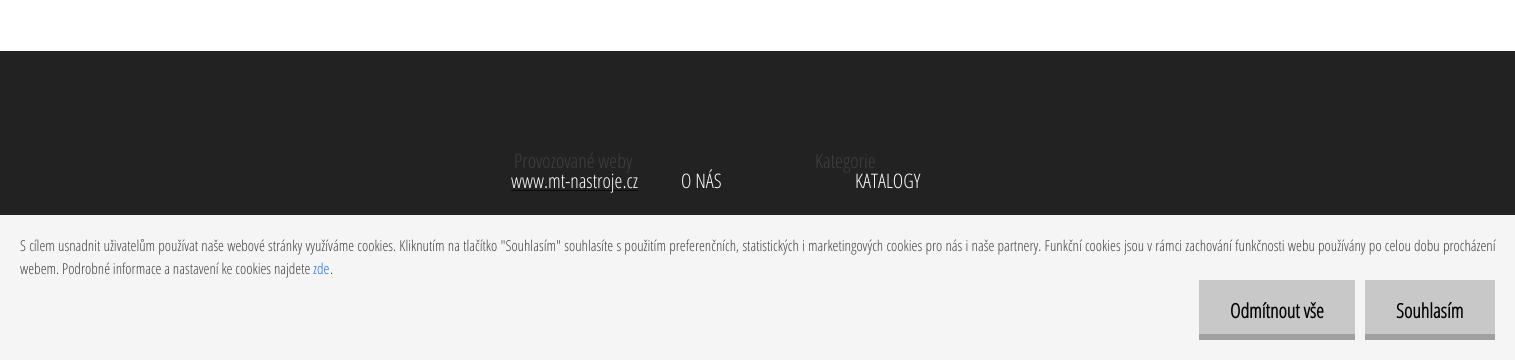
#include <cairo.h>
#include <math.h>
#include <stddef.h>

static cairo_t *c;
static void C(unsigned color){cairo_set_source_rgb(c, (color >> 16) / 255.0, (color >> 8 & 255) / 255.0, (color & 255) / 255.0);}
static void F(const char *family, double size, int italic, int bold){cairo_select_font_face(c, family, italic ? CAIRO_FONT_SLANT_ITALIC : CAIRO_FONT_SLANT_NORMAL,bold ? CAIRO_FONT_WEIGHT_BOLD : CAIRO_FONT_WEIGHT_NORMAL);cairo_set_font_size(c, size);}
static void T(double x, double y, const char *s){cairo_move_to(c, x, y);cairo_show_text(c, s);}
static void L(double x, double y, const char *s, double letter, double word){cairo_move_to(c, x, y);while (*s) {char ch[5] = {0};int n = 0;do ch[n++] = *s++; while ((*s & 0xC0) == 0x80);cairo_show_text(c, ch);cairo_rel_move_to(c, letter + word * (*ch == ' '), 0);}}
static void R(double x, double y, double w, double h){cairo_rectangle(c, x, y, w, h);cairo_fill(c);}
int main(void) {
cairo_surface_t *surface = cairo_image_surface_create(CAIRO_FORMAT_RGB24, 1515, 360);
c = cairo_create(surface);
cairo_font_options_t *options = cairo_font_options_create();
cairo_font_options_set_hint_metrics(options, CAIRO_HINT_METRICS_OFF);
cairo_font_options_set_hint_style(options, CAIRO_HINT_STYLE_NONE);
cairo_set_font_options(c, options);
cairo_set_miter_limit(c, 4);
C(0xffffff);
cairo_paint(c);
C(0x222222);
R(0,51,1515,309);
F("Open Sans Condensed Light",20,0,0);
C(0x3f3f3f);
T(514,168,"Provozované weby");
C(0x0a0a0a);
R(511,190,127,1);
C(0xffffff);
T(511,188,"www.mt-nastroje.cz");
C(0x0a0a0a);
R(511,223,129,1);
C(0x3f3f3f);
T(815,168,"Kategorie");
C(0xffffff);
T(681,188,"O NÁS");
T(855,188,"KATALOGY");
cairo_set_source_rgba(c,1,1,1,0.95);
R(0,215,1515,145);
F("Open Sans Condensed Light",15,0,0);
C(0x3f3f3f);
L(20,251,"S cílem usnadnit uživatelům používat naše webové stránky využíváme cookies. Kliknutím na tlačítko \"Souhlasím\" souhlasíte s použitím preferenčních, statistických i marketingových cookies pro nás i naše partnery. Funkční cookies jsou v rámci zachování funkčnosti webu používány po celou dobu procházení",0,.4);
T(20,274,"webem. Podrobné informace a nastavení ke cookies najdete");
C(0x0d6efd);
T(313,274,"zde");
C(0x3f3f3f);
T(330,274,".");
C(0xc8c8c8);
R(1199,280,156,54);
C(0xa0a0a0);
R(1199,334,156,6);
F("Open Sans Condensed",20,0,1);
C(0x000000);
T(1230,318,"Odmítnout vše");
C(0xc8c8c8);
R(1365,280,130,54);
C(0xa0a0a0);
R(1365,334,130,6);
C(0x000000);
T(1396,318,"Souhlasím");
cairo_surface_write_to_png(surface, "o.png");
cairo_font_options_destroy(options);
cairo_destroy(c);
cairo_surface_destroy(surface);
return 0;
}
